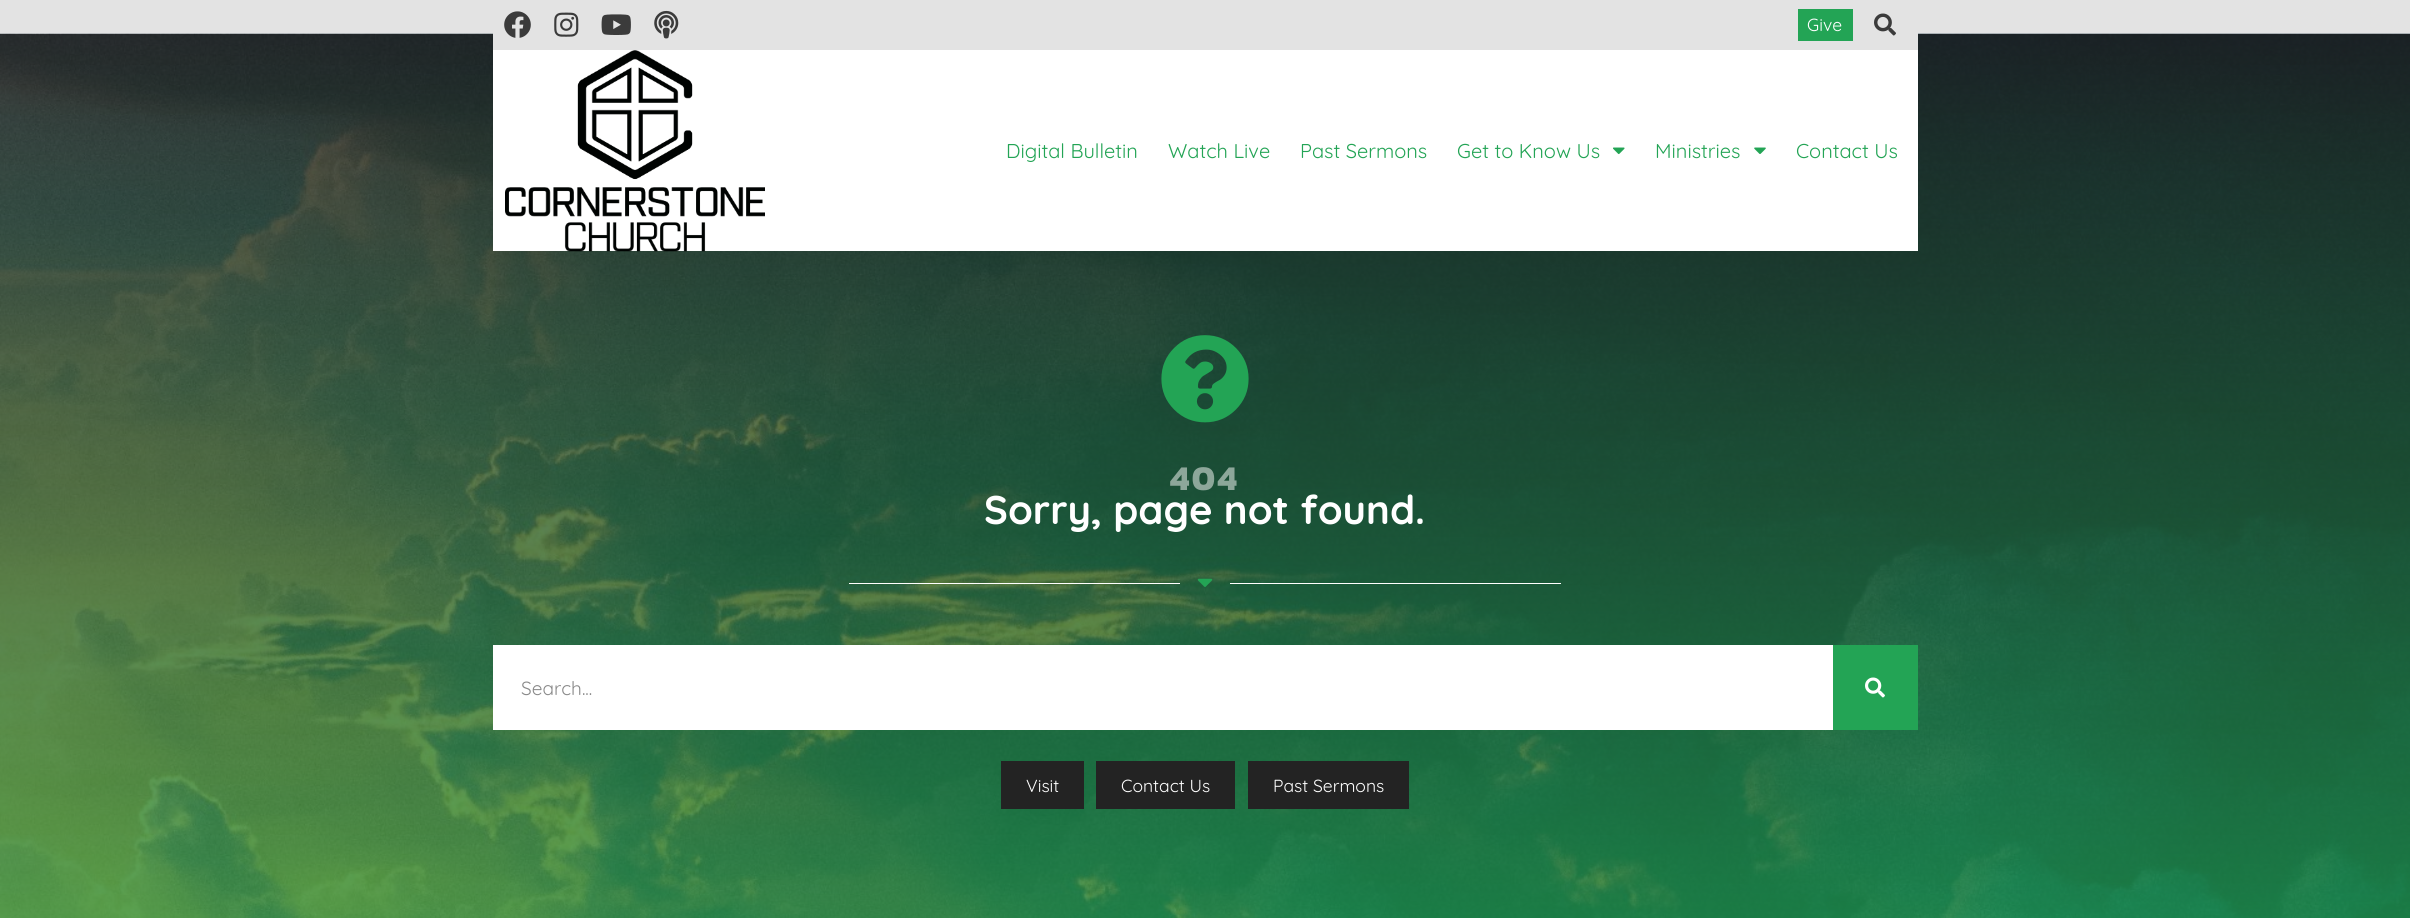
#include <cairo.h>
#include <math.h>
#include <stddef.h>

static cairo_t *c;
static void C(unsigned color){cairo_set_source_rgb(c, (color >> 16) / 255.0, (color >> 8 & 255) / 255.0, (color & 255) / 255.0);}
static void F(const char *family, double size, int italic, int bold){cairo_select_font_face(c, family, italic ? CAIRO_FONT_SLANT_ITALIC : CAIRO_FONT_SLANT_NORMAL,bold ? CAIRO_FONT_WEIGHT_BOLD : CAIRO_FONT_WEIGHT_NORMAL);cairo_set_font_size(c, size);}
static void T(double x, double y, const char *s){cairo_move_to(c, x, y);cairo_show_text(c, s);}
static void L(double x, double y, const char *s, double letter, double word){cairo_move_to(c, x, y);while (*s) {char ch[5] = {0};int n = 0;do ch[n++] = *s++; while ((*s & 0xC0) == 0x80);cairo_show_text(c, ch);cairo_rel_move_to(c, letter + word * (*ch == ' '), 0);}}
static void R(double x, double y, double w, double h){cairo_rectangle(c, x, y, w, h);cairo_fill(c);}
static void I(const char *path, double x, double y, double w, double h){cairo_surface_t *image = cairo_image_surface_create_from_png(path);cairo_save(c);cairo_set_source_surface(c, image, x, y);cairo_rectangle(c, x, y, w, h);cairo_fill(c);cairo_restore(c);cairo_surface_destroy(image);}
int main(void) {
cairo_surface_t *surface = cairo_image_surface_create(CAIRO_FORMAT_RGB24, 2410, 918);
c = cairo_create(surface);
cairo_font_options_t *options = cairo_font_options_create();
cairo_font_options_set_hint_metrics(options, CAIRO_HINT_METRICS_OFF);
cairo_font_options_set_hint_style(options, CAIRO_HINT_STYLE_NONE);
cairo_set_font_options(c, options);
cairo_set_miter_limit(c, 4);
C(0xe3e3e3);
cairo_paint(c);
I("9.png",0,33,2410,885);
C(0xe3e3e3);
R(493,33,1425,17);
I("1.png",504,11,27,27);
I("2.png",554,12,25,25);
I("3.png",601,14,30,21);
I("4.png",654,10,25,29);
C(0x23a455);
R(1798,9,55,32);
F("Quicksand",17.5,0,0);
C(0xffffff);
T(1807,31,"Give");
I("5.png",1874,13,22,23);
R(493,50,1425,201);
I("6.png",505,50,260,202);
F("Quicksand",20,0,0);
C(0x23a455);
T(1006,158,"Digital Bulletin");
T(1168,158,"Watch Live");
T(1300,158,"Past Sermons");
T(1457,158,"Get to Know Us");
I("7.png",1613,147,12,8);
T(1655,158,"Ministries");
I("8.png",1754,147,12,7);
T(1796,158,"Contact Us");
I("10.png",1161,335,88,88);
F("Kanit",35,0,1);
C(0x8da79a);
L(1170,490,"404",2.5,0);
F("Quicksand",40,0,1);
C(0xffffff);
T(984,524,"Sorry, page not found.");
R(849,583,331,1);
I("11.png",1197,578,16,9);
R(1230,583,331,1);
R(493,645,1340,85);
F("Quicksand",19,0,0);
C(0x898989);
T(521,695,"Search...");
C(0x23a455);
R(1833,645,85,85);
I("12.png",1865,677,20,21);
C(0x232323);
R(1001,761,83,48);
F("Quicksand",17.5,0,0);
C(0xffffff);
T(1026,792,"Visit");
C(0x232323);
R(1096,761,139,48);
C(0xffffff);
T(1121,792,"Contact Us");
C(0x232323);
R(1248,761,161,48);
C(0xffffff);
T(1273,792,"Past Sermons");
cairo_surface_write_to_png(surface, "o.png");
cairo_font_options_destroy(options);
cairo_destroy(c);
cairo_surface_destroy(surface);
return 0;
}
